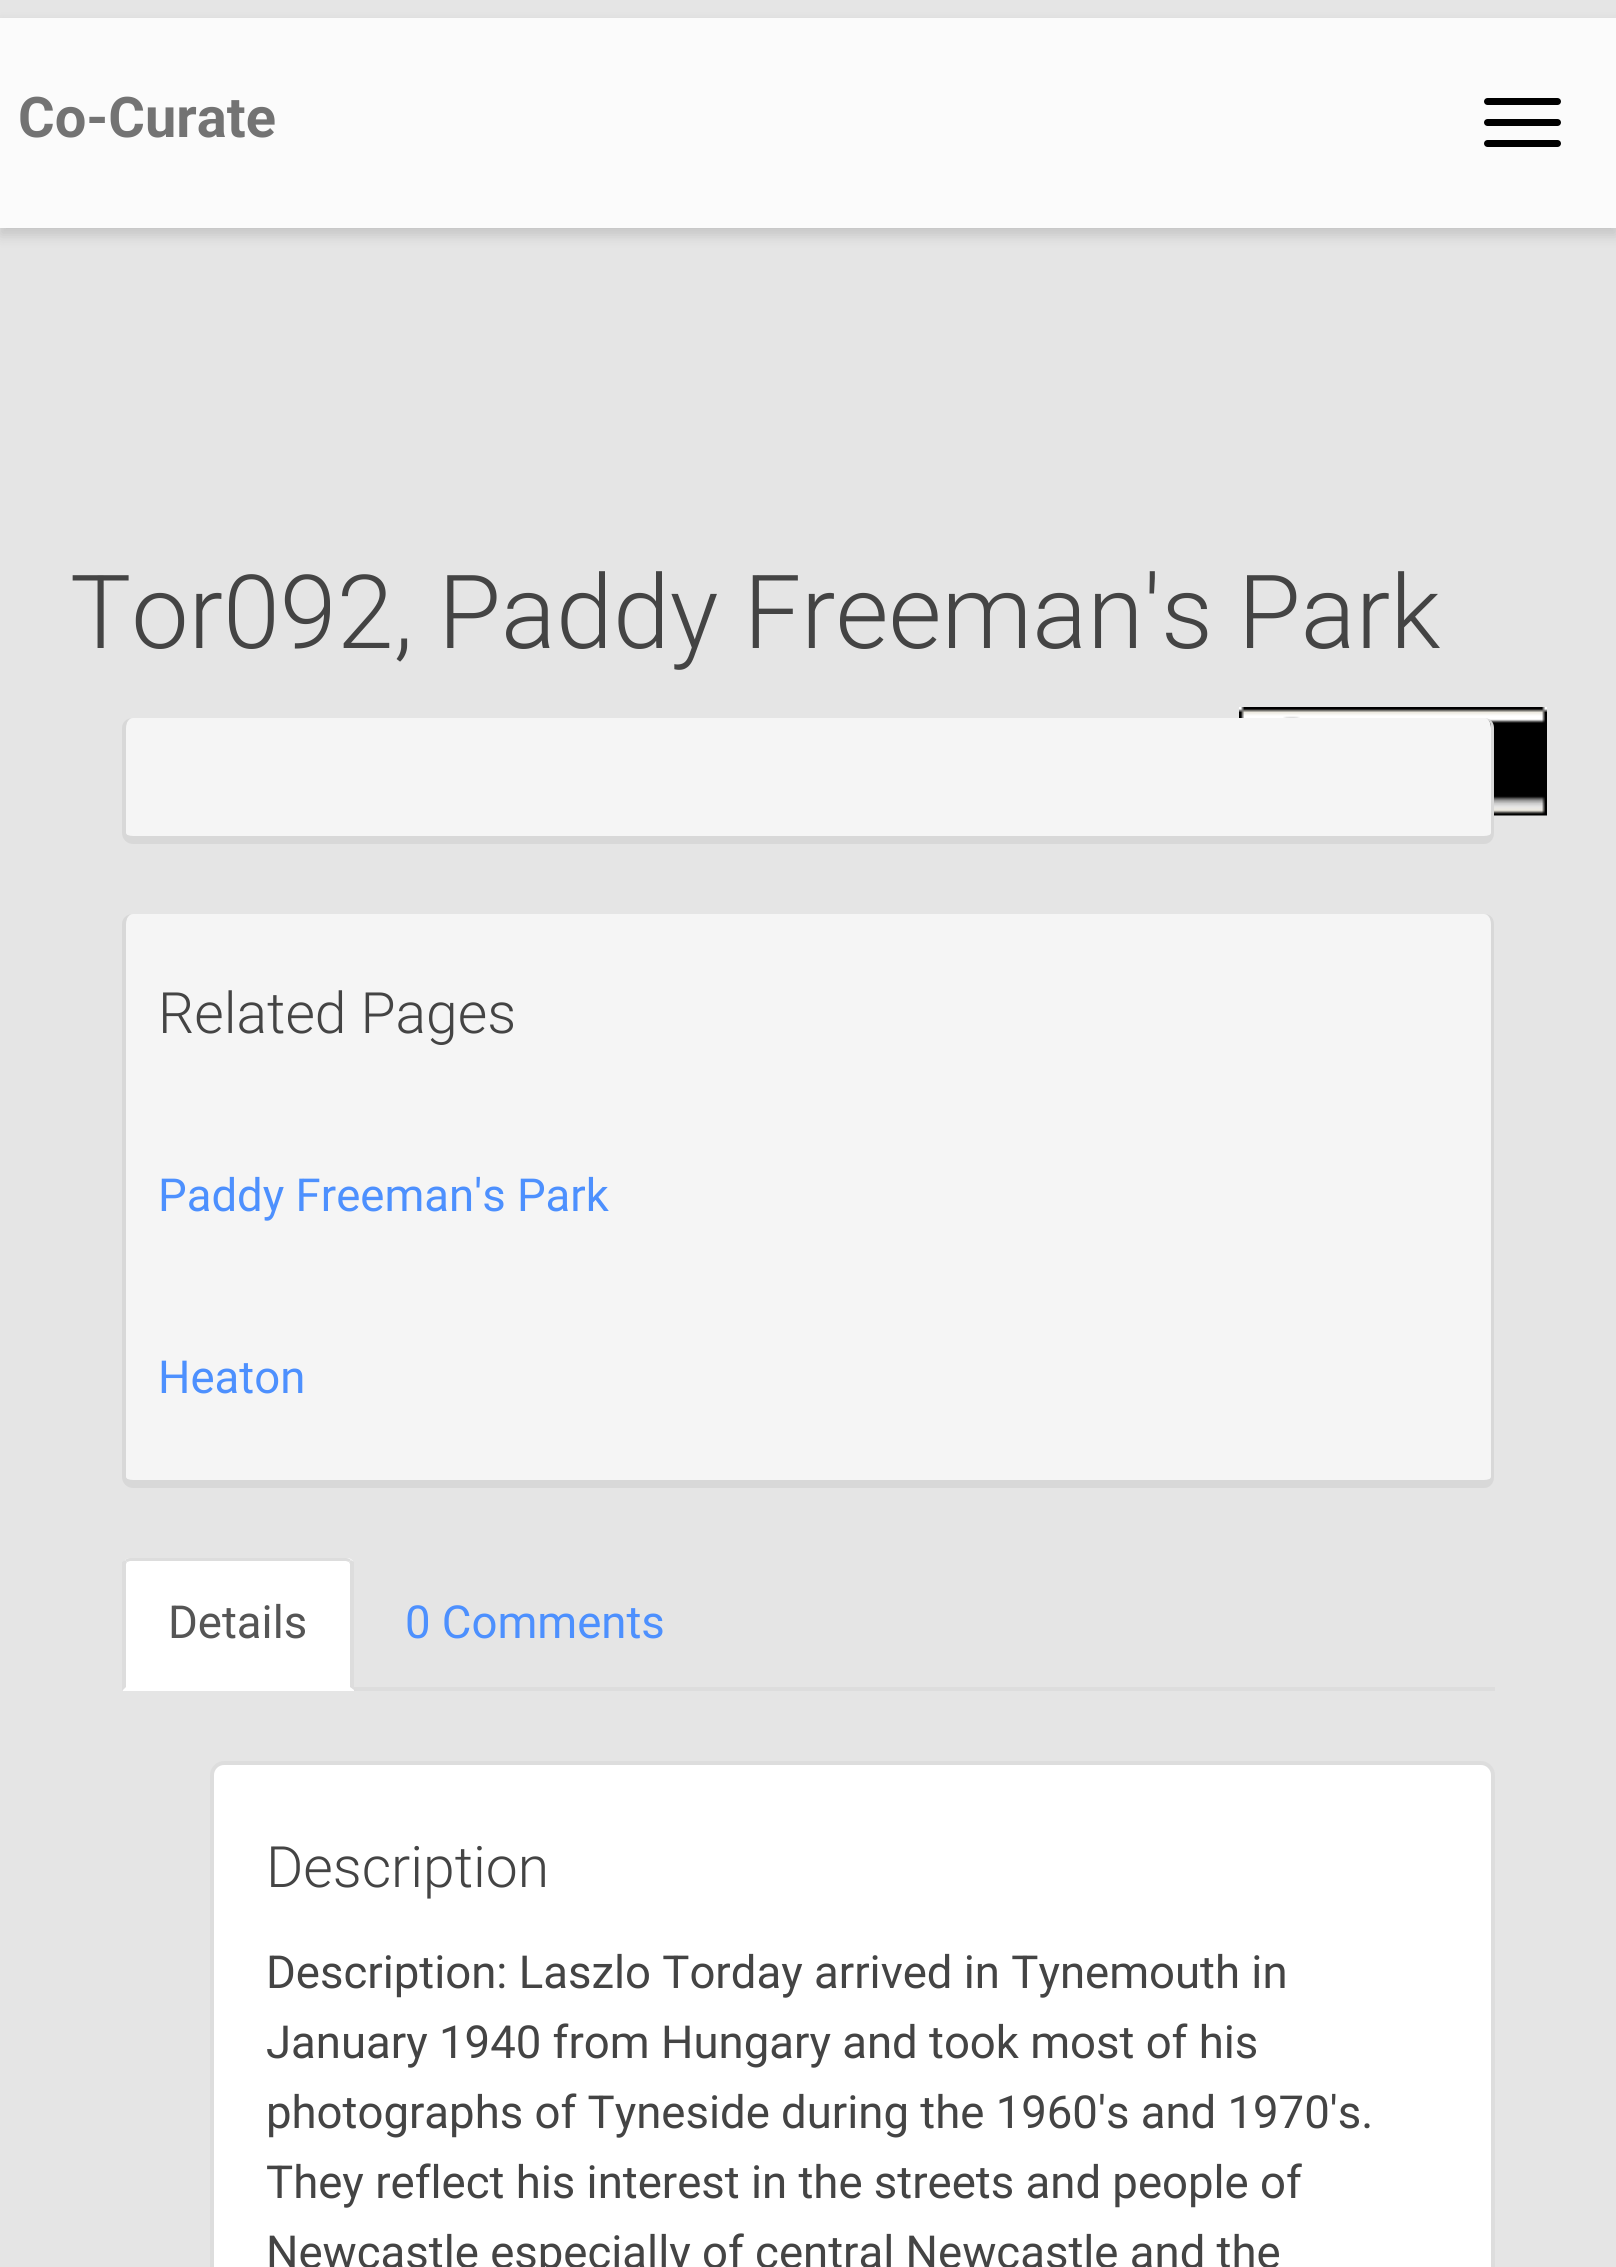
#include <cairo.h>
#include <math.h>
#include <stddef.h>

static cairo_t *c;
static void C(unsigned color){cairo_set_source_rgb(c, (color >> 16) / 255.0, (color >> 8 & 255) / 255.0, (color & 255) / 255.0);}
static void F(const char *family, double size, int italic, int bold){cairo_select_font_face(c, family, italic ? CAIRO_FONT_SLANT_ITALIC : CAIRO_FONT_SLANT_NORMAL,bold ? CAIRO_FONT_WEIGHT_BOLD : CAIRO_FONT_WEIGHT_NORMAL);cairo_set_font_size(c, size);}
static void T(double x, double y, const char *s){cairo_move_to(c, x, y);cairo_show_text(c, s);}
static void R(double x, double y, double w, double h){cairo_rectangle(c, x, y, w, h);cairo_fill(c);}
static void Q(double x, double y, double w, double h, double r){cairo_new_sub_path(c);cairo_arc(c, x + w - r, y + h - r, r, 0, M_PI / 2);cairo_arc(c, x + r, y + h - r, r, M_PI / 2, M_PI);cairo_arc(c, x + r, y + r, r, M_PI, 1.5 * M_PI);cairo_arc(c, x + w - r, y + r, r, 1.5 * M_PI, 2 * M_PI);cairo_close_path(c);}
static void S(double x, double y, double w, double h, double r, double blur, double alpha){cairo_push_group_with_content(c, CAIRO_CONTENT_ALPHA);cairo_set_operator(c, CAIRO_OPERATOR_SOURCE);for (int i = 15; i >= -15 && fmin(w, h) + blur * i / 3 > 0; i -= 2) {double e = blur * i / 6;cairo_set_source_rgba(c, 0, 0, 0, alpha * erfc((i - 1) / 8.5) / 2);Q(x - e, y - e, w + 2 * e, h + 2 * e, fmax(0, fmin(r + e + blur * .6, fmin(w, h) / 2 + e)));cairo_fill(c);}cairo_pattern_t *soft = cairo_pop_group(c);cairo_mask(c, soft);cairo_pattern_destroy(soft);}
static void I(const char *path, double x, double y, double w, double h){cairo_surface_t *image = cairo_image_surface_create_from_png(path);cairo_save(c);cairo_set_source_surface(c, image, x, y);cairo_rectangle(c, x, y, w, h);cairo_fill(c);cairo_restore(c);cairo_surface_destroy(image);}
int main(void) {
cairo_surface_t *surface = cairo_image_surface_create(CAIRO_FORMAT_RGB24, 1616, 2267);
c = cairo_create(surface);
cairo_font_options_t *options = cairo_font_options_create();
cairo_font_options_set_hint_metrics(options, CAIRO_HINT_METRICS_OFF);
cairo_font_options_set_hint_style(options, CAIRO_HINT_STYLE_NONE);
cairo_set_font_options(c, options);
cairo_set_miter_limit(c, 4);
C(0xe5e5e5);
cairo_paint(c);
C(0x000000);
S(0,25,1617,210,0,7,.15);
C(0xfbfbfb);
R(0,18,1616,210);
F("Roboto",56,0,1);
C(0x737373);
T(18,137,"Co-Curate");
C(0x000000);
Q(1484,98,77,7,3.5);
cairo_fill(c);
Q(1484,119,77,7,3.5);
cairo_fill(c);
Q(1484,140,77,7,3.5);
cairo_fill(c);
F("Roboto Light",102.4,0,0);
C(0x444444);
T(70,648,"Tor092, Paddy Freeman's Park");
I("1.png",1239,707,308,109);
C(0xf5f5f5);
cairo_new_path(c);
cairo_move_to(c,133,718);
cairo_line_to(c,1484,718);
cairo_curve_to(c,1488,718,1491,722,1491,728);
cairo_line_to(c,1491,833);
cairo_curve_to(c,1491,835,1488,836,1484,836);
cairo_line_to(c,133,836);
cairo_curve_to(c,129,836,126,835,126,833);
cairo_line_to(c,126,728);
cairo_curve_to(c,126,722,129,718,133,718);
cairo_close_path(c);
cairo_fill(c);
C(0xd8d8d8);
cairo_set_fill_rule(c,CAIRO_FILL_RULE_EVEN_ODD);
cairo_new_path(c);
cairo_move_to(c,133,718);
cairo_line_to(c,1484,718);
cairo_curve_to(c,1490,718,1494,722,1494,728);
cairo_line_to(c,1494,833);
cairo_curve_to(c,1494,839,1490,844,1484,844);
cairo_line_to(c,133,844);
cairo_curve_to(c,127,844,122,839,122,833);
cairo_line_to(c,122,728);
cairo_curve_to(c,122,722,127,718,133,718);
cairo_close_path(c);
cairo_move_to(c,133,718);
cairo_line_to(c,1484,718);
cairo_curve_to(c,1488,718,1491,722,1491,728);
cairo_line_to(c,1491,833);
cairo_curve_to(c,1491,835,1488,836,1484,836);
cairo_line_to(c,133,836);
cairo_curve_to(c,129,836,126,835,126,833);
cairo_line_to(c,126,728);
cairo_curve_to(c,126,722,129,718,133,718);
cairo_close_path(c);
cairo_fill(c);
C(0xf5f5f5);
cairo_set_fill_rule(c,CAIRO_FILL_RULE_WINDING);
cairo_new_path(c);
cairo_move_to(c,133,914);
cairo_line_to(c,1484,914);
cairo_curve_to(c,1488,914,1491,918,1491,924);
cairo_line_to(c,1491,1477);
cairo_curve_to(c,1491,1479,1488,1480,1484,1480);
cairo_line_to(c,133,1480);
cairo_curve_to(c,129,1480,126,1479,126,1477);
cairo_line_to(c,126,924);
cairo_curve_to(c,126,918,129,914,133,914);
cairo_close_path(c);
cairo_fill(c);
C(0xd8d8d8);
cairo_set_fill_rule(c,CAIRO_FILL_RULE_EVEN_ODD);
cairo_new_path(c);
cairo_move_to(c,133,914);
cairo_line_to(c,1484,914);
cairo_curve_to(c,1490,914,1494,918,1494,924);
cairo_line_to(c,1494,1477);
cairo_curve_to(c,1494,1483,1490,1488,1484,1488);
cairo_line_to(c,133,1488);
cairo_curve_to(c,127,1488,122,1483,122,1477);
cairo_line_to(c,122,924);
cairo_curve_to(c,122,918,127,914,133,914);
cairo_close_path(c);
cairo_move_to(c,133,914);
cairo_line_to(c,1484,914);
cairo_curve_to(c,1488,914,1491,918,1491,924);
cairo_line_to(c,1491,1477);
cairo_curve_to(c,1491,1479,1488,1480,1484,1480);
cairo_line_to(c,133,1480);
cairo_curve_to(c,129,1480,126,1479,126,1477);
cairo_line_to(c,126,924);
cairo_curve_to(c,126,918,129,914,133,914);
cairo_close_path(c);
cairo_fill(c);
F("Roboto Light",57,0,0);
C(0x444444);
T(158,1033,"Related Pages");
F("Roboto",45.5,0,0);
C(0x4d90fe);
T(158,1211,"Paddy Freeman's Park");
T(158,1393,"Heaton");
C(0xdddddd);
R(354,1687,1141,4);
C(0xffffff);
cairo_new_path(c);
cairo_move_to(c,130,1558);
cairo_line_to(c,347,1558);
cairo_curve_to(c,351,1558,354,1561,354,1565);
cairo_line_to(c,354,1691);
cairo_line_to(c,123,1691);
cairo_line_to(c,123,1565);
cairo_curve_to(c,123,1561,126,1558,130,1558);
cairo_close_path(c);
cairo_fill(c);
C(0xdddddd);
cairo_set_fill_rule(c,CAIRO_FILL_RULE_WINDING);
cairo_new_path(c);
cairo_move_to(c,130,1558);
cairo_curve_to(c,128,1558,126,1559,125,1560);
cairo_line_to(c,127,1562);
cairo_line_to(c,130,1561);
cairo_line_to(c,274,1561);
cairo_line_to(c,346,1561);
cairo_line_to(c,349,1562);
cairo_line_to(c,351,1560);
cairo_curve_to(c,350,1559,348,1558,346,1558);
cairo_close_path(c);
cairo_fill(c);
cairo_new_path(c);
cairo_move_to(c,351,1560);
cairo_line_to(c,354,1562);
cairo_line_to(c,354,1690);
cairo_line_to(c,350,1687);
cairo_line_to(c,350,1564);
cairo_line_to(c,349,1562);
cairo_close_path(c);
cairo_fill(c);
cairo_new_path(c);
cairo_move_to(c,122,1562);
cairo_line_to(c,125,1560);
cairo_line_to(c,127,1562);
cairo_line_to(c,126,1564);
cairo_line_to(c,126,1687);
cairo_line_to(c,123,1690);
cairo_line_to(c,122,1690);
cairo_close_path(c);
cairo_fill(c);
C(0x555555);
T(168,1638,"Details");
C(0x4d90fe);
T(405,1638,"0 Comments");
C(0xffffff);
cairo_new_path(c);
cairo_move_to(c,224,1763);
cairo_line_to(c,1481,1763);
cairo_curve_to(c,1487.5,1763,1493,1768.5,1493,1775);
cairo_line_to(c,1493,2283);
cairo_line_to(c,212,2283);
cairo_line_to(c,212,1775);
cairo_curve_to(c,212,1768.5,217.5,1763,224,1763);
cairo_close_path(c);
cairo_fill_preserve(c);
C(0xdddddd);
cairo_set_line_width(c,4);
cairo_stroke(c);
F("Roboto Light",57,0,0);
C(0x444444);
T(266,1887,"Description");
F("Roboto",45.5,0,0);
T(266,1988,"Description: Laszlo Torday arrived in Tynemouth in");
T(266,2058,"January 1940 from Hungary and took most of his");
T(266,2128,"photographs of Tyneside during the 1960's and 1970's.");
T(266,2198,"They reflect his interest in the streets and people of");
T(266,2268,"Newcastle especially of central Newcastle and the");
cairo_surface_write_to_png(surface, "o.png");
cairo_font_options_destroy(options);
cairo_destroy(c);
cairo_surface_destroy(surface);
return 0;
}
